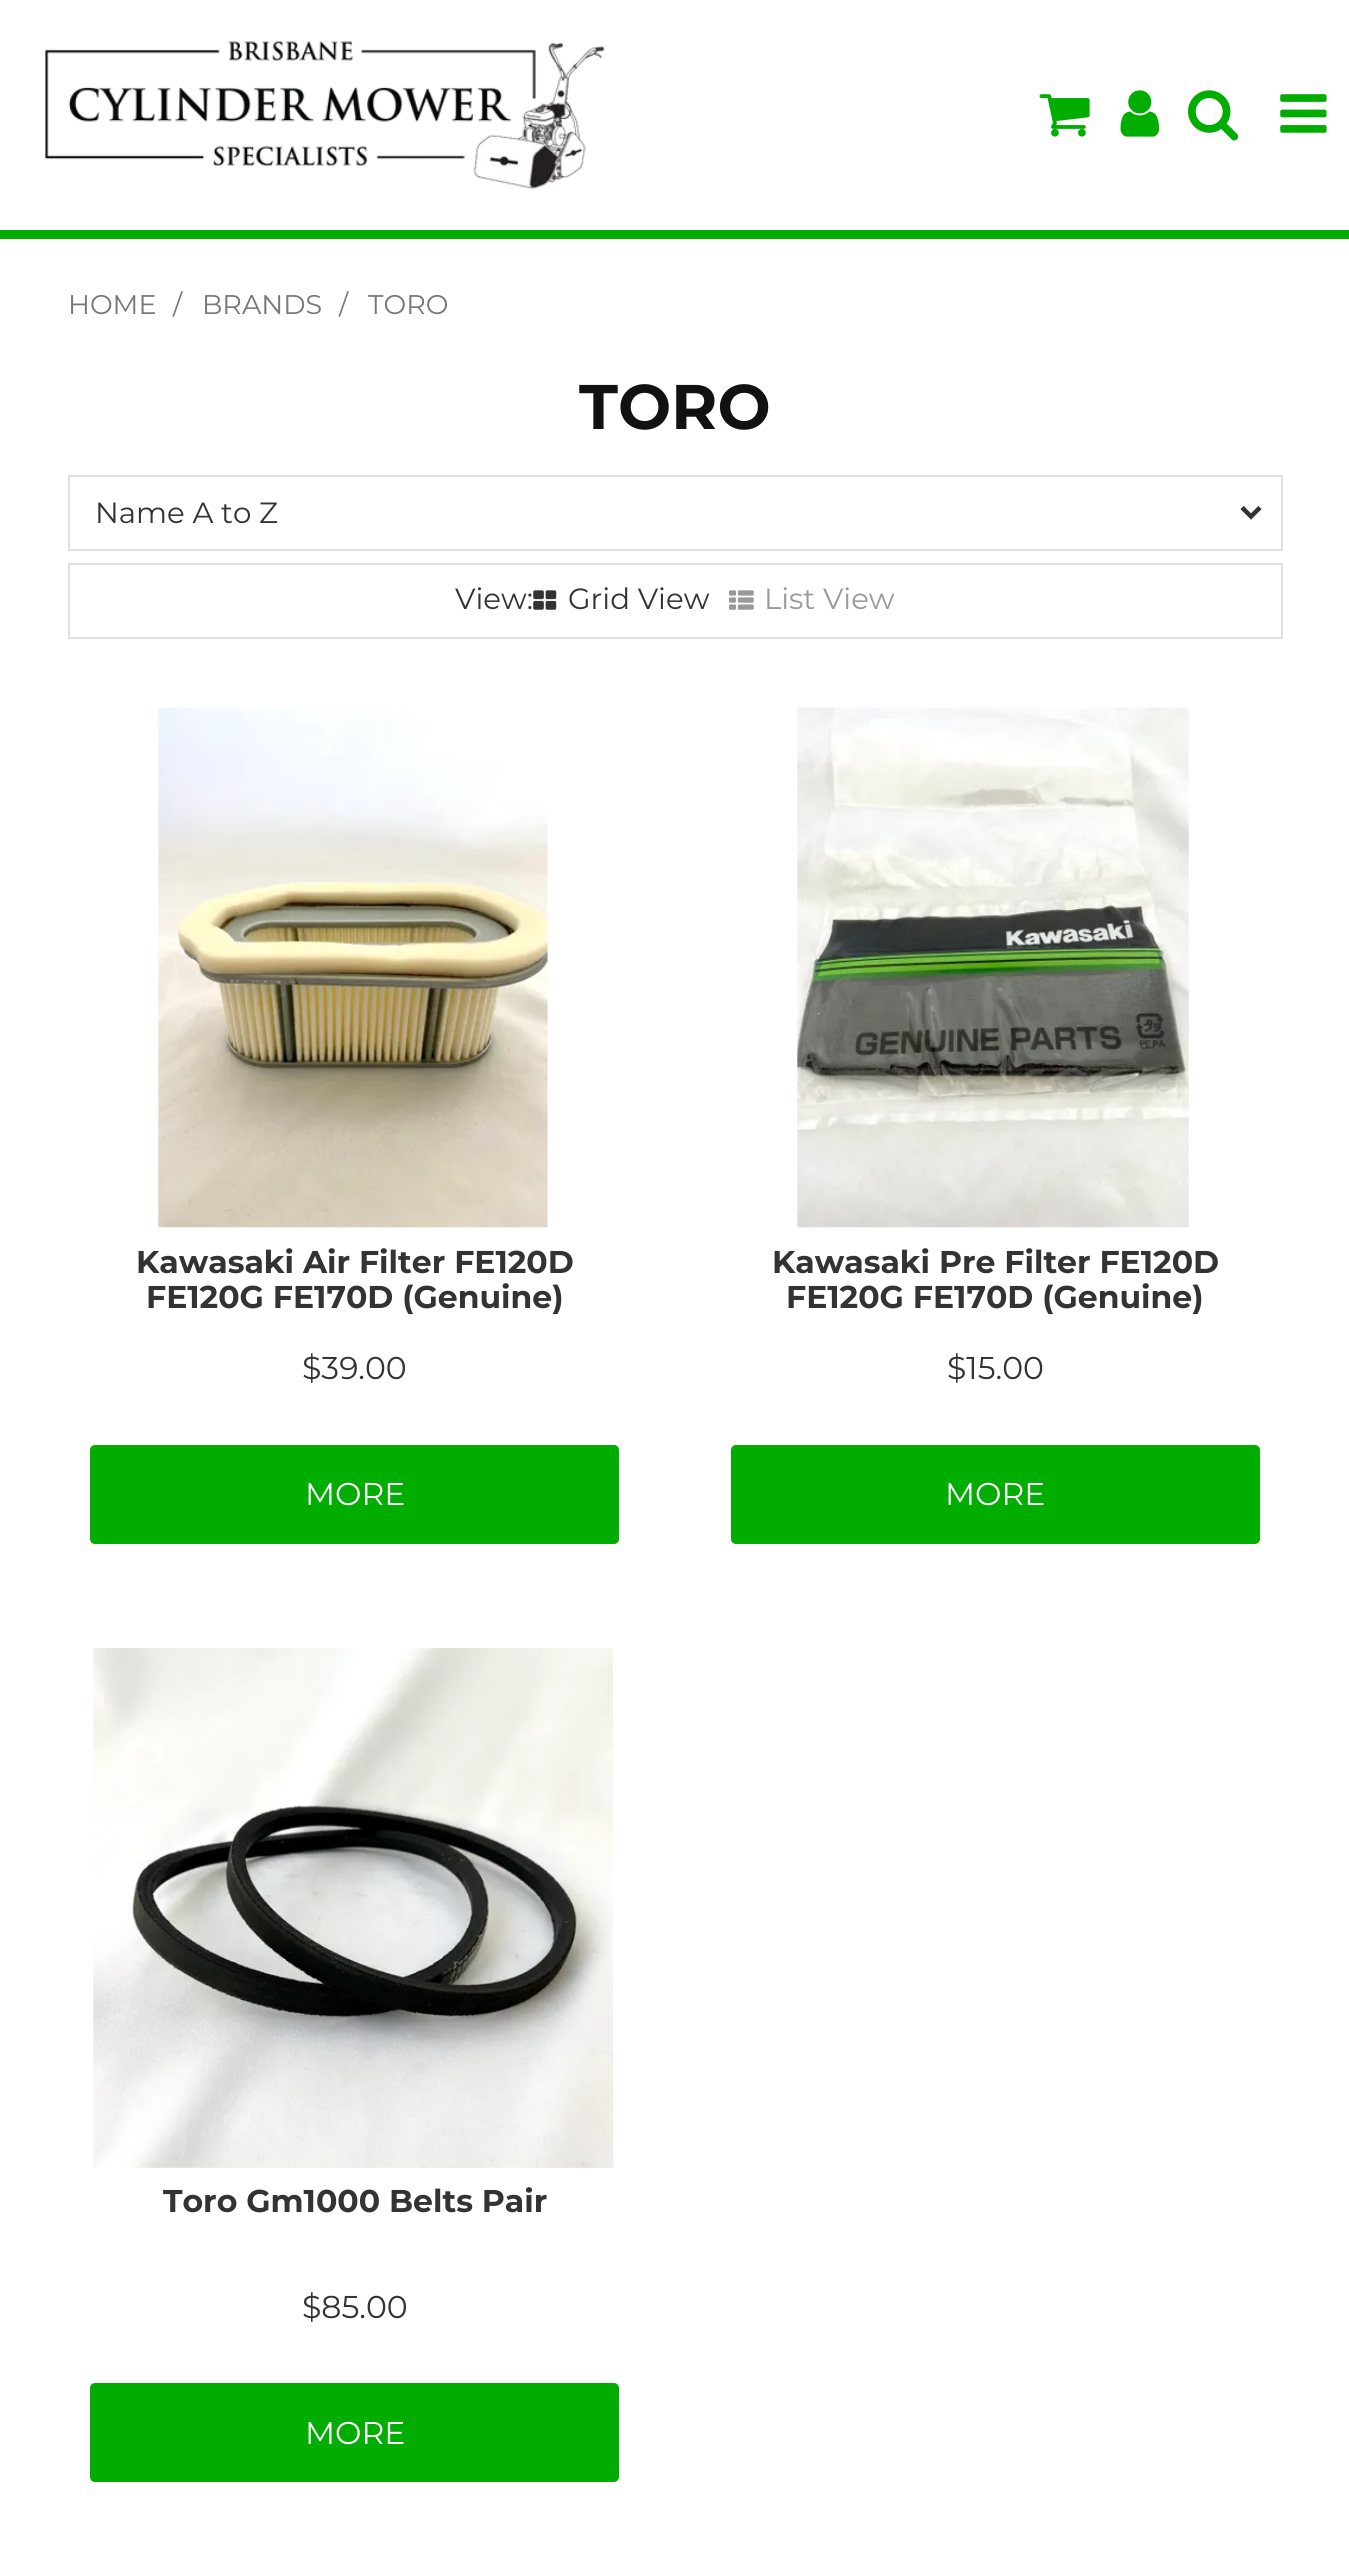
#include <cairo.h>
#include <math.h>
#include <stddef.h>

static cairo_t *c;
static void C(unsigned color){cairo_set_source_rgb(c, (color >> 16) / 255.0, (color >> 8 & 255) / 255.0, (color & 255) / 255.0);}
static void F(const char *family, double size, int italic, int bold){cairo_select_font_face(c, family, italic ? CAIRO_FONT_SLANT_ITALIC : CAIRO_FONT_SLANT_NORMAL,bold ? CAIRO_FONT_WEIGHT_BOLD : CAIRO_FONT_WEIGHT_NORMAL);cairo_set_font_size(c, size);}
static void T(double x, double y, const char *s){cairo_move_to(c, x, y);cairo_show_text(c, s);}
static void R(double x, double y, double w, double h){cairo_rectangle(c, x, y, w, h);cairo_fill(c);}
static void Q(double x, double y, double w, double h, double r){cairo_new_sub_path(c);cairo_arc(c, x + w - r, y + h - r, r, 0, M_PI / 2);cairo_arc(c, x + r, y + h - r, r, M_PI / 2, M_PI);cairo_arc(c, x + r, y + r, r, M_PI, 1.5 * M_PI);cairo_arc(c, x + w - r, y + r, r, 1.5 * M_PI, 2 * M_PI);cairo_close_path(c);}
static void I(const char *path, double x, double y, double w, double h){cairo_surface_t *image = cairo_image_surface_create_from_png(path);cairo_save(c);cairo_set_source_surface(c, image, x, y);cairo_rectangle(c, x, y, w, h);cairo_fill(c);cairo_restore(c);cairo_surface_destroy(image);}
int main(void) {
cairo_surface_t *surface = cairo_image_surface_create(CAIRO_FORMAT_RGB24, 1349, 2556);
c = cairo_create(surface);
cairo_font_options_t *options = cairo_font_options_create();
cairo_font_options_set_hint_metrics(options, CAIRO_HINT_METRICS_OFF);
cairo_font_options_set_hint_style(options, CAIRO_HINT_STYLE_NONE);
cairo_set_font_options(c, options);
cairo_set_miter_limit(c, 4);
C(0xffffff);
cairo_paint(c);
I("1.png",45,41,560,149);
I("2.png",1039,94,51,43);
I("3.png",1120,90,40,47);
I("4.png",1188,90,51,51);
I("5.png",1280,94,47,39);
C(0x00ad00);
R(0,230,1349,9);
F("Montserrat",27,0,0);
C(0x777777);
T(68,314,"HOME");
T(173,314,"/");
T(202,314,"BRANDS");
T(339,314,"/");
T(368,314,"TORO");
F("Montserrat",63,0,1);
C(0x111111);
T(579,429,"TORO");
cairo_rectangle(c,69,476,1213,74);
C(0xe1e1e1);
cairo_stroke(c);
cairo_new_path(c);
cairo_move_to(c,1242,507.5);
cairo_line_to(c,1251,516.5);
cairo_line_to(c,1260,507.5);
C(0x333333);
cairo_set_line_width(c,4.5);
cairo_stroke(c);
F("Montserrat",29.25,0,0);
T(95,523,"Name A to Z");
cairo_rectangle(c,69,564,1213,74);
C(0xe1e1e1);
cairo_set_line_width(c,2);
cairo_stroke(c);
C(0x333333);
T(455,609,"View:");
I("6.png",533,590,24,20);
T(568,609,"Grid View");
I("7.png",729,590,25,20);
C(0x999999);
T(764,609,"List View");
I("8.png",158,707,390,521);
F("Montserrat",31.5,0,1);
C(0x333333);
T(136,1273,"Kawasaki Air Filter FE120D");
T(146,1308,"FE120G FE170D (Genuine)");
F("Montserrat",31.5,0,0);
T(302,1379,"$39.00");
C(0x00ad00);
Q(90,1445,529,99,5);
cairo_fill(c);
C(0xffffff);
T(305,1505,"MORE");
I("9.png",797,707,392,521);
F("Montserrat",31.5,0,1);
C(0x333333);
T(772,1273,"Kawasaki Pre Filter FE120D");
T(786,1308,"FE120G FE170D (Genuine)");
F("Montserrat",31.5,0,0);
T(947,1379,"$15.00");
C(0x00ad00);
Q(731,1445,529,99,5);
cairo_fill(c);
C(0xffffff);
T(945,1505,"MORE");
I("10.png",93,1648,520,520);
F("Montserrat",31.5,0,1);
C(0x333333);
T(163,2212,"Toro Gm1000 Belts Pair");
F("Montserrat",31.5,0,0);
T(302,2318,"$85.00");
C(0x00ad00);
Q(90,2383,529,99,5);
cairo_fill(c);
C(0xffffff);
T(305,2444,"MORE");
cairo_surface_write_to_png(surface, "o.png");
cairo_font_options_destroy(options);
cairo_destroy(c);
cairo_surface_destroy(surface);
return 0;
}
